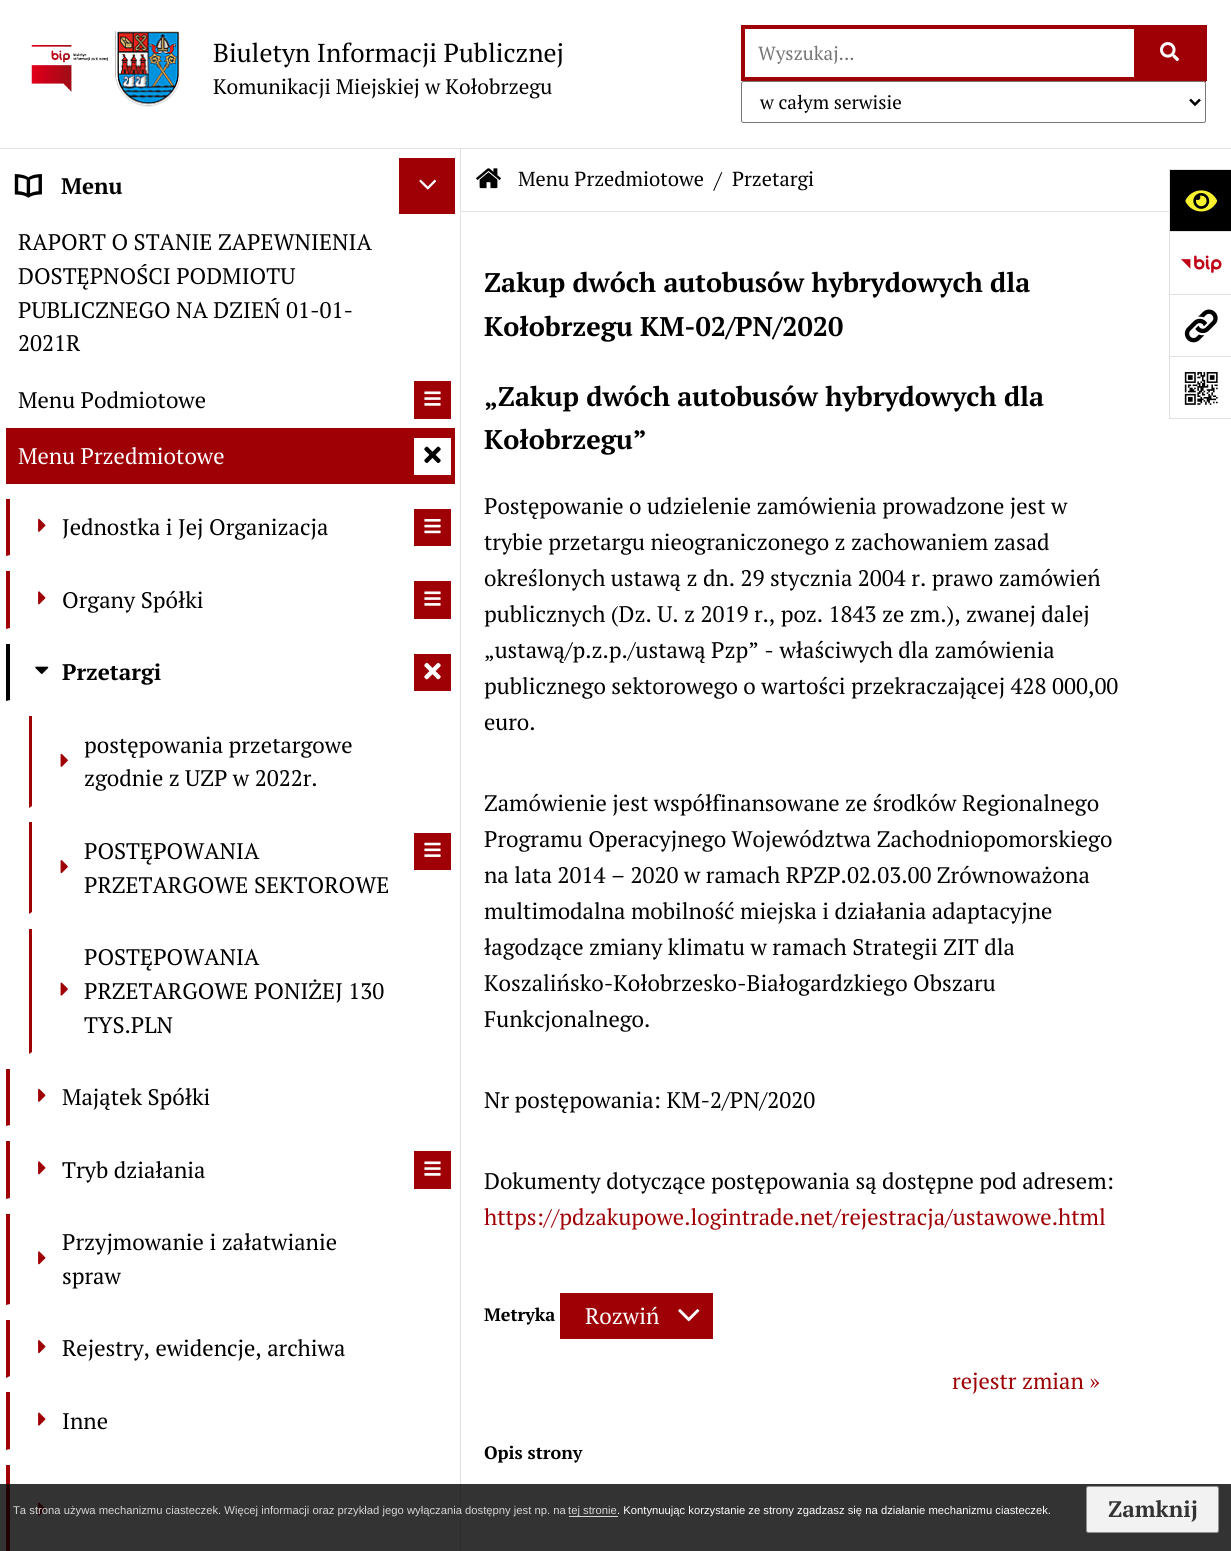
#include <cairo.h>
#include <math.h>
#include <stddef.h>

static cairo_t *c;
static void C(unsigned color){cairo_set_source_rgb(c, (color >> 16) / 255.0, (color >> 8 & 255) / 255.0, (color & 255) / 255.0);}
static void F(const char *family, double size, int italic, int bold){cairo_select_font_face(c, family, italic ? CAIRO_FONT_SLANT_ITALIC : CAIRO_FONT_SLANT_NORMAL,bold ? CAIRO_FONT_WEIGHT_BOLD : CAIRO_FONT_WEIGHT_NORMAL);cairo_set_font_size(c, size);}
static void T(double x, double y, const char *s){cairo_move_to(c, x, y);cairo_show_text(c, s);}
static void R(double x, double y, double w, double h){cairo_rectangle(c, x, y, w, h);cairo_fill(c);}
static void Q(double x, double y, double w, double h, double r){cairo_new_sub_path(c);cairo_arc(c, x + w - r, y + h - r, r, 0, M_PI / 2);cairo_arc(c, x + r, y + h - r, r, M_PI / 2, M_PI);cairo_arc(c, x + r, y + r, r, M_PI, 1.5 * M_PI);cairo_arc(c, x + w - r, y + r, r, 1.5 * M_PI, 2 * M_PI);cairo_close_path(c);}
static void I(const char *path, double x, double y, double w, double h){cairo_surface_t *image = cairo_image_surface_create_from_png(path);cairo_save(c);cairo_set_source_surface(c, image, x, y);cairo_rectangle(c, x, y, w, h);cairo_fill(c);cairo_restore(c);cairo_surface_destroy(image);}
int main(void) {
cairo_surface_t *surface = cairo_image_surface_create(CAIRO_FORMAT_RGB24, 1231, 1551);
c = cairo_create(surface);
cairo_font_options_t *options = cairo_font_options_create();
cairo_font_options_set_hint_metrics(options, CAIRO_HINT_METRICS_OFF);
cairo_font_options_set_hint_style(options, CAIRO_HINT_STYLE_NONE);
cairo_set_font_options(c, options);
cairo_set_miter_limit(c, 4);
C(0xffffff);
cairo_paint(c);
C(0xe1e1e1);
R(0,148,1231,1);
I("1.png",31,45,77,47);
I("2.png",115,31,65,76);
F("PT Serif",25.9,0,0);
C(0x000000);
T(213,62,"Biuletyn Informacji Publicznej");
F("PT Serif",21,0,0);
T(213,94,"Komunikacji Miejskiej w Kołobrzegu");
cairo_rectangle(c,743,27,393,52);
C(0x9e0005);
cairo_set_line_width(c,4);
cairo_stroke(c);
F("PT Serif",19,0,0);
C(0x757575);
T(758,60,"Wyszukaj...");
C(0x9e0005);
R(1138,25,65,53);
R(1203,25,4,56);
R(1138,78,68,4);
I("3.png",1160,42,20,20);
C(0xffffff);
Q(741.5,81.5,464,41,2);
cairo_fill_preserve(c);
C(0x767676);
cairo_set_line_width(c,1);
cairo_stroke(c);
cairo_new_path(c);
cairo_move_to(c,1190,99.5);
cairo_line_to(c,1195,104.5);
cairo_line_to(c,1200,99.5);
C(0x000000);
cairo_set_line_width(c,2.5);
cairo_stroke(c);
T(760,109,"w całym serwisie");
I("4.png",14,174,28,24);
F("PT Serif",22.5,0,1);
T(61,194,"Menu");
C(0x9e0005);
R(399,158,56,56);
I("5.png",419,179,18,11);
F("PT Serif",22.5,0,0);
C(0x000000);
T(18,250,"RAPORT O STANIE ZAPEWNIENIA");
T(18,284,"DOSTĘPNOŚCI PODMIOTU");
T(18,318,"PUBLICZNEGO NA DZIEŃ 01-01-");
T(18,351,"2021R");
T(18,408,"Menu Podmiotowe");
C(0x9e0005);
R(414,381,37,38);
I("6.png",424,391,17,15);
R(6,428,449,56);
C(0xffffff);
T(18,464,"Menu Przedmiotowe");
R(414,438,37,37);
I("7.png",424,446,17,17);
C(0x9e0005);
cairo_new_path(c);
cairo_move_to(c,6,556);
cairo_line_to(c,6,499);
cairo_line_to(c,10,499);
cairo_line_to(c,10,555);
cairo_close_path(c);
cairo_fill(c);
I("8.png",38,518,8,14);
C(0x000000);
T(62,535,"Jednostka i Jej Organizacja");
C(0x9e0005);
R(414,509,37,37);
I("9.png",424,519,17,15);
cairo_new_path(c);
cairo_move_to(c,6,629);
cairo_line_to(c,6,571);
cairo_line_to(c,10,571);
cairo_line_to(c,10,628);
cairo_close_path(c);
cairo_fill(c);
I("10.png",38,591,8,14);
C(0x000000);
T(62,608,"Organy Spółki");
C(0x9e0005);
R(414,581,37,38);
I("6.png",424,591,17,15);
C(0x000000);
cairo_new_path(c);
cairo_move_to(c,6,701);
cairo_line_to(c,6,644);
cairo_line_to(c,10,644);
cairo_line_to(c,10,700);
cairo_close_path(c);
cairo_fill(c);
I("11.png",35,666,14,8);
F("PT Serif",22.5,0,1);
T(62,680,"Przetargi");
C(0x9e0005);
R(414,654,37,37);
I("12.png",424,662,17,18);
cairo_new_path(c);
cairo_move_to(c,29,808);
cairo_line_to(c,29,716);
cairo_line_to(c,32,716);
cairo_line_to(c,32,806);
cairo_close_path(c);
cairo_fill(c);
I("13.png",60,753,8,14);
F("PT Serif",22.5,0,0);
C(0x000000);
T(84,753,"postępowania przetargowe");
T(84,786,"zgodnie z UZP w 2022r.");
C(0x9e0005);
cairo_new_path(c);
cairo_move_to(c,29,914);
cairo_line_to(c,29,822);
cairo_line_to(c,32,822);
cairo_line_to(c,32,912);
cairo_close_path(c);
cairo_fill(c);
I("14.png",60,860,8,14);
C(0x000000);
T(84,859,"POSTĘPOWANIA");
T(84,893,"PRZETARGOWE SEKTOROWE");
C(0x9e0005);
R(414,833,37,37);
I("15.png",424,842,17,15);
cairo_new_path(c);
cairo_move_to(c,29,1054);
cairo_line_to(c,29,929);
cairo_line_to(c,32,929);
cairo_line_to(c,32,1052);
cairo_close_path(c);
cairo_fill(c);
I("16.png",60,982,8,14);
C(0x000000);
T(84,965,"POSTĘPOWANIA");
T(84,999,"PRZETARGOWE PONIŻEJ 130");
T(84,1033,"TYS.PLN");
C(0x9e0005);
cairo_new_path(c);
cairo_move_to(c,6,1126);
cairo_line_to(c,6,1069);
cairo_line_to(c,10,1069);
cairo_line_to(c,10,1125);
cairo_close_path(c);
cairo_fill(c);
I("8.png",38,1088,8,14);
C(0x000000);
T(62,1105,"Majątek Spółki");
C(0x9e0005);
cairo_new_path(c);
cairo_move_to(c,6,1199);
cairo_line_to(c,6,1141);
cairo_line_to(c,10,1141);
cairo_line_to(c,10,1198);
cairo_close_path(c);
cairo_fill(c);
I("10.png",38,1161,8,14);
C(0x000000);
T(62,1178,"Tryb działania");
C(0x9e0005);
R(414,1151,37,38);
I("6.png",424,1161,17,15);
cairo_new_path(c);
cairo_move_to(c,6,1305);
cairo_line_to(c,6,1214);
cairo_line_to(c,10,1214);
cairo_line_to(c,10,1304);
cairo_close_path(c);
cairo_fill(c);
I("10.png",38,1251,8,14);
C(0x000000);
T(62,1250,"Przyjmowanie i załatwianie");
T(62,1284,"spraw");
C(0x9e0005);
cairo_new_path(c);
cairo_move_to(c,6,1378);
cairo_line_to(c,6,1320);
cairo_line_to(c,10,1320);
cairo_line_to(c,10,1376);
cairo_close_path(c);
cairo_fill(c);
I("17.png",38,1340,8,14);
C(0x000000);
T(62,1356,"Rejestry, ewidencje, archiwa");
C(0x9e0005);
cairo_new_path(c);
cairo_move_to(c,6,1450);
cairo_line_to(c,6,1392);
cairo_line_to(c,10,1392);
cairo_line_to(c,10,1449);
cairo_close_path(c);
cairo_fill(c);
I("18.png",38,1412,8,14);
C(0x000000);
T(62,1429,"Inne");
C(0x9e0005);
cairo_new_path(c);
cairo_move_to(c,6,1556);
cairo_line_to(c,6,1465);
cairo_line_to(c,10,1465);
cairo_line_to(c,10,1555);
cairo_close_path(c);
cairo_fill(c);
I("18.png",38,1502,8,14);
C(0xe1e1e1);
R(460,149,1,1402);
C(0x000000);
R(1170,170,61,61);
C(0xe1e1e1);
R(1169,169,62,1);
R(1169,169,1,62);
I("19.png",1185,190,33,22);
R(1169,231,62,1);
R(1169,231,1,63);
I("20.png",1181,255,41,18);
R(1169,294,62,1);
R(1169,294,1,62);
I("21.png",1184,309,34,34);
R(1169,356,62,1);
R(1169,418,62,1);
R(1169,356,1,63);
I("22.png",1184,372,34,33);
R(461,211,708,1);
I("23.png",476,168,25,21);
F("PT Serif",20.25,0,0);
C(0x000000);
T(518,186,"Menu Przedmiotowe");
F("PT Serif",22.5,0,0);
T(714,188,"/");
F("PT Serif",20.25,0,0);
T(732,186,"Przetargi");
F("PT Serif",27,0,1);
T(484,292,"Zakup dwóch autobusów hybrydowych dla");
T(484,336,"Kołobrzegu KM-02/PN/2020");
T(484,406,"„Zakup dwóch autobusów hybrydowych dla");
T(484,449,"Kołobrzegu”");
F("PT Serif",22.5,0,0);
T(484,514,"Postępowanie o udzielenie zamówienia prowadzone jest w");
T(484,550,"trybie przetargu nieograniczonego z zachowaniem zasad");
T(484,586,"określonych ustawą z dn. 29 stycznia 2004 r. prawo zamówień");
T(484,622,"publicznych (Dz. U. z 2019 r., poz. 1843 ze zm.), zwanej dalej");
T(484,658,"„ustawą/p.z.p./ustawą Pzp” - właściwych dla zamówienia");
T(484,694,"publicznego sektorowego o wartości przekraczającej 428 000,00");
T(484,730,"euro.");
T(484,811,"Zamówienie jest współfinansowane ze środków Regionalnego");
T(484,847,"Programu Operacyjnego Województwa Zachodniopomorskiego");
T(484,883,"na lata 2014 – 2020 w ramach RPZP.02.03.00 Zrównoważona");
T(484,919,"multimodalna mobilność miejska i działania adaptacyjne");
T(484,955,"łagodzące zmiany klimatu w ramach Strategii ZIT dla");
T(484,991,"Koszalińsko-Kołobrzesko-Białogardzkiego Obszaru");
T(484,1027,"Funkcjonalnego.");
T(484,1108,"Nr postępowania: KM-2/PN/2020");
T(484,1189,"Dokumenty dotyczące postępowania są dostępne pod adresem:");
C(0x9e0005);
T(484,1225,"https://pdzakupowe.logintrade.net/rejestracja/ustawowe.html");
F("PT Serif",18,0,1);
C(0x000000);
T(484,1321,"Metryka");
C(0x9e0005);
R(560,1293,153,46);
F("PT Serif",22.5,0,0);
C(0xffffff);
T(585,1324,"Rozwiń");
I("24.png",678,1309,22,13);
C(0x9e0005);
T(952,1389,"rejestr zmian »");
F("PT Serif",18,0,1);
C(0x000000);
T(484,1459,"Opis strony");
cairo_set_source_rgba(c,0,0,0,0.8);
R(0,1484,1231,67);
F("Liberation Sans",11.25,0,0);
C(0xd6d6d6);
T(13,1514,"Ta strona używa mechanizmu ciasteczek. Więcej informacji oraz przykład jego wyłączania dostępny jest np. na");
cairo_set_source_rgba(c,1,1,1,0.8);
R(569,1516,49,1);
C(0xd6d6d6);
T(568,1514,"tej stronie");
C(0xffffff);
T(617,1514,". Kontynuując korzystanie ze strony zgadzasz się na działanie mechanizmu ciasteczek.");
C(0xf2f2f2);
Q(1086.5,1486.5,132,46,2);
cairo_fill_preserve(c);
C(0x919191);
cairo_set_line_width(c,1);
cairo_stroke(c);
F("PT Serif",22.5,0,1);
C(0x333333);
T(1108,1517,"Zamknij");
cairo_surface_write_to_png(surface, "o.png");
cairo_font_options_destroy(options);
cairo_destroy(c);
cairo_surface_destroy(surface);
return 0;
}
